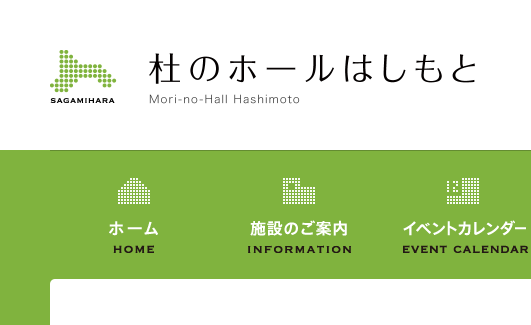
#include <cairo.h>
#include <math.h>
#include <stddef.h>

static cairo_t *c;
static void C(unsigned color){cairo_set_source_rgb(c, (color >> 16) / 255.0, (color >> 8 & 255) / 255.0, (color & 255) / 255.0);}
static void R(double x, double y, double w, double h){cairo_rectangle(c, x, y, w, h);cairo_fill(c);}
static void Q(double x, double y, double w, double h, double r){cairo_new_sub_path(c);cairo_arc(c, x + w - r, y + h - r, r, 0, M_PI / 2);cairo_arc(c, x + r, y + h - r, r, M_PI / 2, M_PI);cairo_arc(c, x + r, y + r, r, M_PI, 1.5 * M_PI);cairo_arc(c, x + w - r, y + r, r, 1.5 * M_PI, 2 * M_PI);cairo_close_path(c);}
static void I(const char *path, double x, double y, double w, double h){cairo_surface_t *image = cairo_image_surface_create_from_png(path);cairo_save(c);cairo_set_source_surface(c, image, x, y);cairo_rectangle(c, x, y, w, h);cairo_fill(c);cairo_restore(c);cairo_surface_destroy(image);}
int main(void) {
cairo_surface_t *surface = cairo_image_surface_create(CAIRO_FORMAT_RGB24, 531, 325);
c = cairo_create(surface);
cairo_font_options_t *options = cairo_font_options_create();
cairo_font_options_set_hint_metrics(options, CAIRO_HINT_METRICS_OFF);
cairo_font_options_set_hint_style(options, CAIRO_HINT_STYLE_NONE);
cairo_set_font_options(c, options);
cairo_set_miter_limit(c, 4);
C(0x80b33e);
cairo_paint(c);
C(0xffffff);
R(0,0,531,150);
I("1.png",50,50,425,54);
C(0x648c31);
R(50,150,481,1);
I("2.png",109,178,49,75);
I("3.png",248,178,103,75);
I("4.png",403,178,125,75);
C(0xffffff);
Q(50,279,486,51,5);
cairo_fill(c);
cairo_surface_write_to_png(surface, "o.png");
cairo_font_options_destroy(options);
cairo_destroy(c);
cairo_surface_destroy(surface);
return 0;
}
